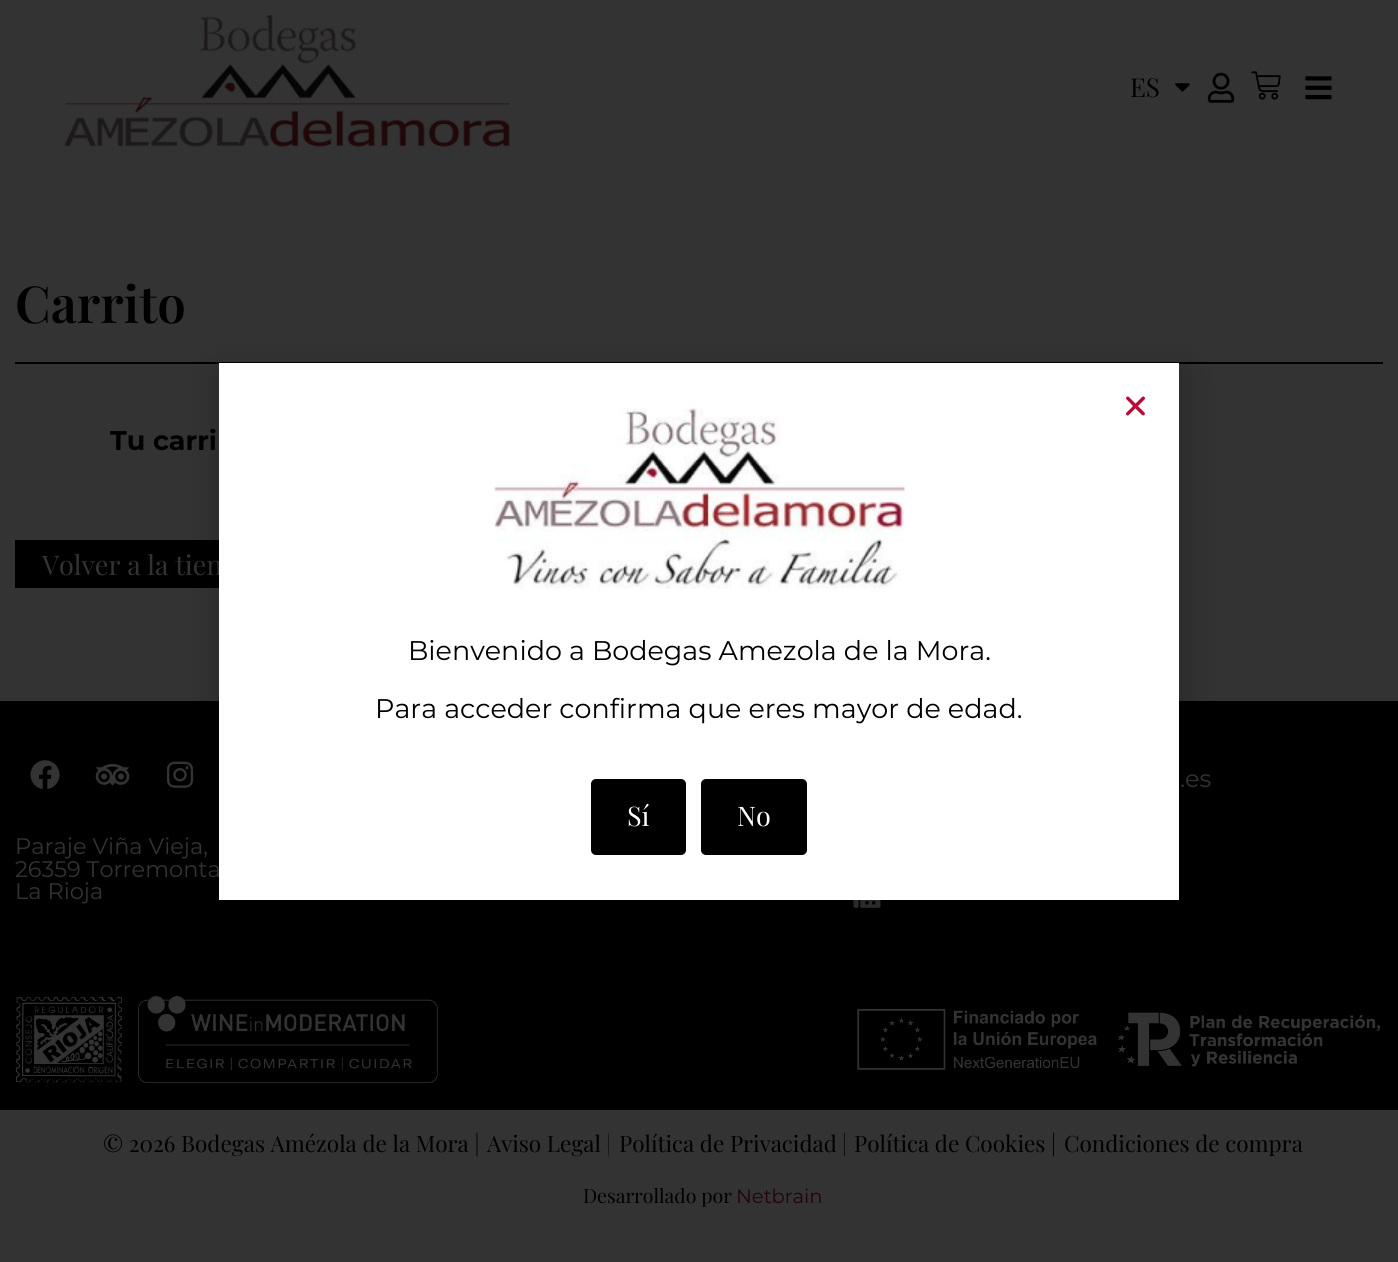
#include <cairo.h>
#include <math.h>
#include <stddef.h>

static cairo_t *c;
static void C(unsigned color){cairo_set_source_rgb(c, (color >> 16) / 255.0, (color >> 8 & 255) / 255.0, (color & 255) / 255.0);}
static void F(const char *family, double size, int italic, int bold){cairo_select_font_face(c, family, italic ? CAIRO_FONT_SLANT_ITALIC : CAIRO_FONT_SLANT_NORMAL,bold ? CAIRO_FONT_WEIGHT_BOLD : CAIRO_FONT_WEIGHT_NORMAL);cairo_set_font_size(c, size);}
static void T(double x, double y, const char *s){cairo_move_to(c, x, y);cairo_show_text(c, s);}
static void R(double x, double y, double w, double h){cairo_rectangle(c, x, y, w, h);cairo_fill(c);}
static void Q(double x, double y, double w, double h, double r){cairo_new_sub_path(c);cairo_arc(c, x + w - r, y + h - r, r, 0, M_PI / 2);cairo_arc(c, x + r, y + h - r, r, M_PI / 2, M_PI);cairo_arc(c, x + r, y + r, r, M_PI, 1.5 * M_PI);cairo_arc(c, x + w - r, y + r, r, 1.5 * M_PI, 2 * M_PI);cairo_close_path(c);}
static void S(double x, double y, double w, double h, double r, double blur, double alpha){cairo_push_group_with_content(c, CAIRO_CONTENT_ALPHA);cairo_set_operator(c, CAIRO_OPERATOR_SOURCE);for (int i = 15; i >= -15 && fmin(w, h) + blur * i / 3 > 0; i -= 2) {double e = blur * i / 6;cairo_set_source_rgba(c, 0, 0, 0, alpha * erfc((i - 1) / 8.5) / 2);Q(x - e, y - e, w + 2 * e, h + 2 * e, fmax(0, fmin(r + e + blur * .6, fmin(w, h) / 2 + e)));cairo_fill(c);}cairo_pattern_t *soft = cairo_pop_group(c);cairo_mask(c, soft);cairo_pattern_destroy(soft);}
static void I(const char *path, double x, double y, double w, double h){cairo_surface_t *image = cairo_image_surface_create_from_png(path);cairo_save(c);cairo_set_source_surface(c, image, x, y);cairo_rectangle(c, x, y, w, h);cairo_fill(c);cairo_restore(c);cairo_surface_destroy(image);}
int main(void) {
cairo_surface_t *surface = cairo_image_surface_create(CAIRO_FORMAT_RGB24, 1398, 1262);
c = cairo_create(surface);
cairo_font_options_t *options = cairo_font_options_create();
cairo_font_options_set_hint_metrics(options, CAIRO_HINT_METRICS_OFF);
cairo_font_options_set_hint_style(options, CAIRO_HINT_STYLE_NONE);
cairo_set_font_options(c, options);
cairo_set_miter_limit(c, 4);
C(0x333333);
cairo_paint(c);
I("1.png",63,15,447,133);
F("Playfair Display",26,0,0);
C(0x000000);
T(1130,97,"ES");
I("2.png",1175,83,15,9);
I("3.png",1207,72,28,31);
I("4.png",1251,71,30,29);
I("5.png",1305,76,27,24);
F("Playfair Display SemiBold",51,0,0);
T(15,323,"Carrito");
R(15,362,1368,2);
F("Montserrat",27,0,1);
T(110,450,"Tu carri");
R(15,540,204,48);
F("Playfair Display",27,0,0);
C(0x333333);
T(42,575,"Volver a la tien");
C(0x000000);
R(0,701,1398,409);
I("8.png",853,900,28,8);
I("11.png",166,761,28,27);
C(0x000000);
S(218,371,969,546,0,17,.2);
C(0xffffff);
R(219,363,960,537);
I("6.png",1125,396,21,20);
I("7.png",494,408,411,181);
F("Montserrat",27,0,0);
C(0x000000);
T(408,660,"Bienvenido a Bodegas Amezola de la Mora.");
T(375,718,"Para acceder confirma que eres mayor de edad.");
Q(591,779,95,76,5);
cairo_fill(c);
F("Playfair Display",27,0,0);
C(0xffffff);
T(627,826,"Sí");
C(0x000000);
Q(701,779,106,76,5);
cairo_fill(c);
C(0xffffff);
T(737,826,"No");
F("Montserrat",24,0,0);
C(0x333333);
T(1180,787,".es");
I("9.png",30,760,30,30);
I("10.png",95,763,35,23);
F("Montserrat",22.5,0,0);
T(15,854,"Paraje Viña Vieja,");
T(15,877,"26359 Torremonta");
T(15,899,"La Rioja");
I("12.png",15,996,107,87);
I("13.png",138,996,300,87);
I("14.png",857,1008,240,62);
I("15.png",1117,1012,263,55);
F("Playfair Display",22.5,0,0);
C(0x000000);
T(103,1152,"© 2026 Bodegas Amézola de la Mora |");
T(487,1152,"Aviso Legal |");
T(619,1152,"Política de Privacidad |");
T(854,1152,"Política de Cookies |");
T(1064,1152,"Condiciones de compra");
F("Playfair Display",19.5,0,0);
T(583,1203,"Desarrollado por");
F("Montserrat",19.5,0,0);
C(0x25020b);
T(736,1203,"Netbrain");
cairo_surface_write_to_png(surface, "o.png");
cairo_font_options_destroy(options);
cairo_destroy(c);
cairo_surface_destroy(surface);
return 0;
}
